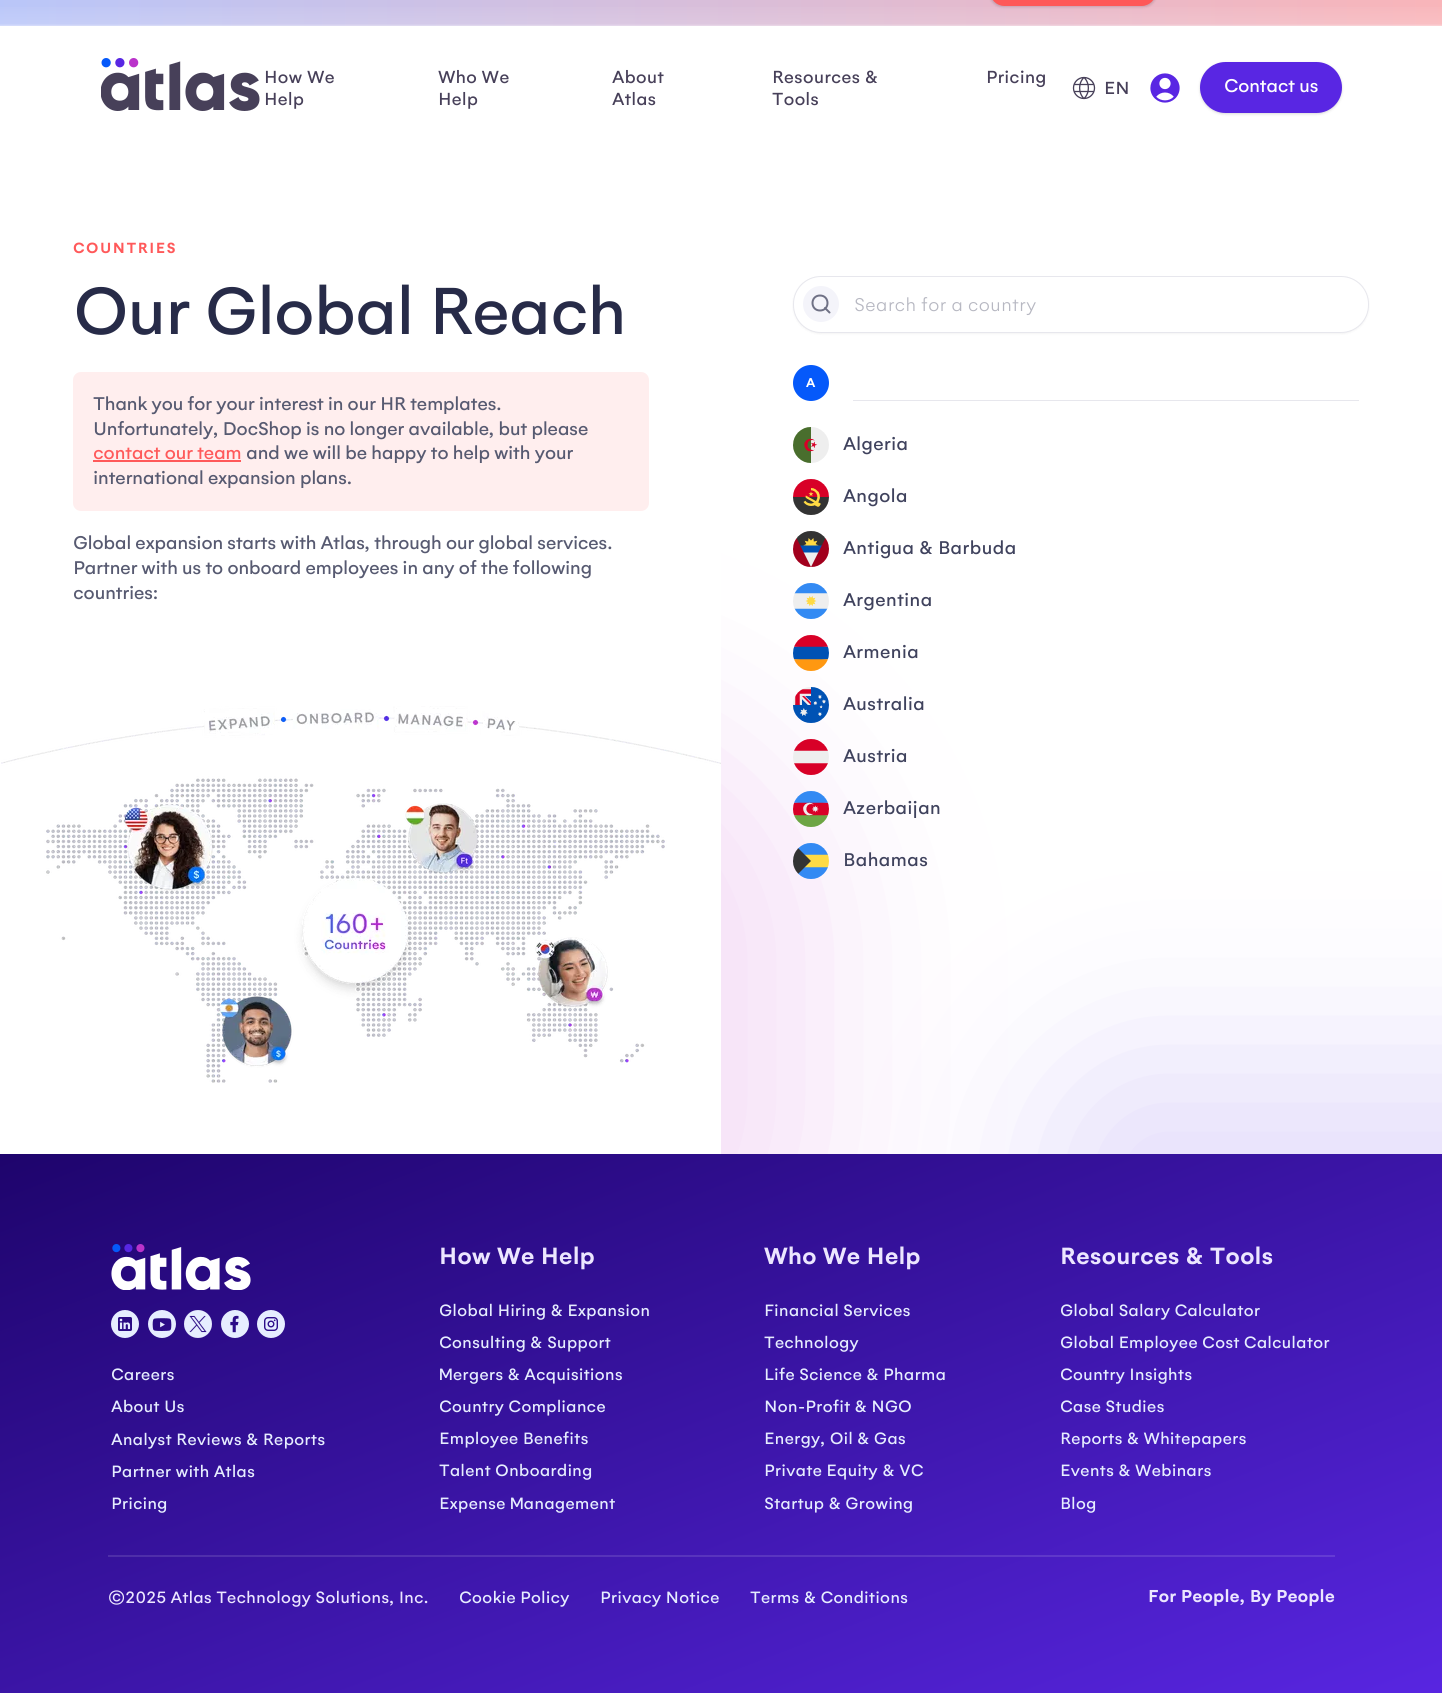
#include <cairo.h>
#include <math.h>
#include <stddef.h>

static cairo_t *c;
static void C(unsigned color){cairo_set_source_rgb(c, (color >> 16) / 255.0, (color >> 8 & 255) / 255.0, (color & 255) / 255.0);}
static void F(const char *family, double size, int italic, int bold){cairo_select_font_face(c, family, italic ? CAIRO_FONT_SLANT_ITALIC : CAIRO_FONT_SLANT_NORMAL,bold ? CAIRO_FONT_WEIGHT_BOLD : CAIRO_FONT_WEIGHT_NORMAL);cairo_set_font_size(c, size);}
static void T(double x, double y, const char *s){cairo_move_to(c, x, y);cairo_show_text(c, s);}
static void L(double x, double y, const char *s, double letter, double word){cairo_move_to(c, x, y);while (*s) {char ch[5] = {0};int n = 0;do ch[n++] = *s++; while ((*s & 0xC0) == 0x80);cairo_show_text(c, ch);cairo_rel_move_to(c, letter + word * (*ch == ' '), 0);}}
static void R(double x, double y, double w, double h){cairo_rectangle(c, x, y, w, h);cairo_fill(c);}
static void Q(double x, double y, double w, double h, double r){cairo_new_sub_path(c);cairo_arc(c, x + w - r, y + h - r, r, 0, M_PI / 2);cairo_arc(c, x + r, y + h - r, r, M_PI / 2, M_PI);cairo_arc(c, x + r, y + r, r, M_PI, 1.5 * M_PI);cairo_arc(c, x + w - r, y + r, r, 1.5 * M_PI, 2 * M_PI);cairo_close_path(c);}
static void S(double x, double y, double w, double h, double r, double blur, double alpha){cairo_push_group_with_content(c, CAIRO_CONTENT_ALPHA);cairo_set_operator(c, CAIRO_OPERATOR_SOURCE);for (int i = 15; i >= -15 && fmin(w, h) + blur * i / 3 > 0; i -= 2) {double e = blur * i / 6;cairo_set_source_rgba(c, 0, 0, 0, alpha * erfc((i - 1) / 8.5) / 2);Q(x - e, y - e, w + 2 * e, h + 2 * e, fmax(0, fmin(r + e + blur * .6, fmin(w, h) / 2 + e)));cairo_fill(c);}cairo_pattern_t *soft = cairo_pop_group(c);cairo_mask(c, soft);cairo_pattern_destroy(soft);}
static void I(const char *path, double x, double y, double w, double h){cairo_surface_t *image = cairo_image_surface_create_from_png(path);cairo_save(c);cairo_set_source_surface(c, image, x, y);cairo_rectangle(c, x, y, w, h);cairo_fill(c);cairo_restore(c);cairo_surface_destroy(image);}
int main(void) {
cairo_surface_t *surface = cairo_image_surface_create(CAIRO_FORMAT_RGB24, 1442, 1693);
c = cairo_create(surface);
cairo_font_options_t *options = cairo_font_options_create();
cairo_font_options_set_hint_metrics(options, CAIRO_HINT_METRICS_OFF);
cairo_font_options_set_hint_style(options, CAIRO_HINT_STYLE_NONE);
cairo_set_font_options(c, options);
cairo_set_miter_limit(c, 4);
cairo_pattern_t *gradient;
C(0xffffff);
cairo_paint(c);
gradient = cairo_pattern_create_linear(-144,-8,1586,-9);
cairo_pattern_add_color_stop_rgba(gradient,0,0.702,0.784,1,1);
cairo_pattern_add_color_stop_rgba(gradient,1,1,0.702,0.702,1);
cairo_set_source(c,gradient);
cairo_pattern_destroy(gradient);
R(0,0,1442,26);
gradient = cairo_pattern_create_linear(721,26,721,-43);
cairo_pattern_add_color_stop_rgba(gradient,0,1,1,1,.15);
cairo_pattern_add_color_stop_rgba(gradient,.36,1,1,1,0);
cairo_set_source(c,gradient);
cairo_pattern_destroy(gradient);
R(0,7,1442,19);
gradient = cairo_pattern_create_linear(721,26,721,-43);
cairo_pattern_add_color_stop_rgba(gradient,0,1,1,1,.36);
cairo_pattern_add_color_stop_rgba(gradient,.03,1,1,1,0);
cairo_set_source(c,gradient);
cairo_pattern_destroy(gradient);
R(0,24,1442,2);
C(0x000000);
S(990,-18,166,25,14.5,1,.06);
S(990,-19,166,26,14.5,1.5,.1);
C(0xfe5858);
Q(990,-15,166,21,14.5);
cairo_fill(c);
I("1.png",101,58,159,53);
F("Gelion",19,0,0);
C(0x474059);
T(264,83,"How We");
T(264,105,"Help");
T(438,83,"Who We");
T(438,105,"Help");
T(612,83,"About");
T(612,105,"Atlas");
T(772,83,"Resources &");
T(772,105,"Tools");
T(986,83,"Pricing");
I("2.png",1072,76,24,24);
T(1104,94,"EN");
I("3.png",1150,73,30,30);
C(0x000000);
S(1200,63,142,51,25.5,1,.06);
S(1200,63,142,51,25.5,1.5,.1);
C(0x5926e3);
Q(1200,62,142,51,25.5);
cairo_fill(c);
F("Gelion",20,0,0);
C(0xffffff);
L(1224,92,"Contact us",-.5,0);
F("Gelion SemiBold",16,0,0);
C(0xff595a);
L(73,253,"COUNTRIES",1.5,0);
F("Gelion",72,0,0);
C(0x272b48);
L(73,334,"Our Global Reach",-1.75,0);
C(0x000000);
S(793,277,576,57,28,1,.05);
C(0xffffff);
Q(793.5,276.5,575,56,27.5);
cairo_fill_preserve(c);
C(0xe7e7ed);
cairo_set_line_width(c,1);
cairo_stroke(c);
C(0xf4f4fa);
cairo_arc(c,821,304,18,0,2 * M_PI);
cairo_fill(c);
cairo_new_path(c);
cairo_move_to(c,820,310.5);
cairo_curve_to(c,830,310.5,830,295.5,820,295.5);
cairo_curve_to(c,810,295.5,810,310.5,820,310.5);
cairo_close_path(c);
cairo_move_to(c,825,308);
cairo_line_to(c,829.5,312.5);
C(0x6f7185);
cairo_set_line_width(c,2);
cairo_set_line_cap(c,CAIRO_LINE_CAP_ROUND);
cairo_set_line_join(c,CAIRO_LINE_JOIN_ROUND);
cairo_stroke(c);
F("Gelion Light",20,0,0);
C(0xb7b8c2);
T(854,311,"Search for a country");
C(0x0559fa);
cairo_new_path(c);
cairo_arc(c,811,383,18,0,2 * M_PI);
cairo_fill(c);
F("Gelion SemiBold",14,0,0);
C(0xffffff);
T(806,387,"A");
C(0xe7e7ed);
R(853,400,506,1);
cairo_save(c);
cairo_rectangle(c,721,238,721,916);
cairo_clip(c);
C(0xf5e0f7);
S(324,715,496,627,248,87,1);
cairo_restore(c);
I("4.png",793,427,36,36);
F("Gelion",20,0,0);
C(0x3f425d);
T(843,450,"Algeria");
I("5.png",793,479,36,36);
T(843,502,"Angola");
I("6.png",793,531,36,36);
T(843,554,"Antigua & Barbuda");
I("7.png",793,583,36,36);
T(843,606,"Argentina");
I("8.png",793,635,36,36);
T(843,658,"Armenia");
I("9.png",793,687,36,36);
T(843,710,"Australia");
I("10.png",793,739,36,36);
T(843,762,"Austria");
C(0xe6dffb);
S(1050,1059,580,238,119,87,1);
I("11.png",793,791,36,36);
C(0x3f425d);
T(843,814,"Azerbaijan");
I("12.png",793,843,36,36);
T(843,866,"Bahamas");
C(0xffeeee);
Q(73,372,576,139,8);
cairo_fill(c);
C(0x575a71);
L(93,410,"Thank you for your interest in our HR templates.",-.5,0);
L(93,435,"Unfortunately, DocShop is no longer available, but please",-.5,0);
C(0xff595a);
L(93,459,"contact our team",-.5,0);
R(93,460,148,2);
C(0x575a71);
L(246,459,"and we will be happy to help with your",-.5,0);
L(93,484,"international expansion plans.",-.5,0);
L(73,549,"Global expansion starts with Atlas, through our global services.",-.5,0);
L(73,574,"Partner with us to onboard employees in any of the following",-.5,0);
L(73,599,"countries:",-.5,0);
I("13.png",1,706,720,377);
gradient = cairo_pattern_create_linear(535,948,907,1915);
cairo_pattern_add_color_stop_rgba(gradient,0,0.118,0.016,0.424,1);
cairo_pattern_add_color_stop_rgba(gradient,1,0.349,0.149,0.89,1);
cairo_set_source(c,gradient);
cairo_pattern_destroy(gradient);
R(0,1154,1442,539);
gradient = cairo_pattern_create_linear(535,948,907,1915);
cairo_pattern_add_color_stop_rgba(gradient,0,0.224,0.133,0.494,1);
cairo_pattern_add_color_stop_rgba(gradient,1,0.427,0.251,0.902,1);
cairo_set_source(c,gradient);
cairo_pattern_destroy(gradient);
R(108,1555,1227,2);
I("14.png",111,1244,140,46);
I("15.png",111,1310,28,28);
I("16.png",148,1310,28,28);
I("17.png",184,1310,28,28);
I("18.png",221,1310,28,28);
I("19.png",257,1310,28,28);
F("Gelion",17.8,0,0);
C(0xe6edff);
T(111,1380,"Careers");
T(111,1412,"About Us");
T(111,1445,"Analyst Reviews & Reports");
T(111,1477,"Partner with Atlas");
T(111,1509,"Pricing");
F("Gelion SemiBold",25.5,0,0);
C(0xece6ff);
T(439,1264,"How We Help");
F("Gelion",17.8,0,0);
C(0xe6edff);
T(439,1316,"Global Hiring & Expansion");
T(439,1348,"Consulting & Support");
T(439,1380,"Mergers & Acquisitions");
T(439,1412,"Country Compliance");
T(439,1444,"Employee Benefits");
T(439,1476,"Talent Onboarding");
T(439,1509,"Expense Management");
F("Gelion SemiBold",25.5,0,0);
C(0xece6ff);
T(764,1264,"Who We Help");
F("Gelion",17.8,0,0);
C(0xe6edff);
T(764,1316,"Financial Services");
T(764,1348,"Technology");
T(764,1380,"Life Science & Pharma");
T(764,1412,"Non-Profit & NGO");
T(764,1444,"Energy, Oil & Gas");
T(764,1476,"Private Equity & VC");
T(764,1509,"Startup & Growing");
F("Gelion SemiBold",25.5,0,0);
C(0xece6ff);
T(1060,1264,"Resources & Tools");
F("Gelion",17.8,0,0);
C(0xe6edff);
T(1060,1316,"Global Salary Calculator");
T(1060,1348,"Global Employee Cost Calculator");
T(1060,1380,"Country Insights");
T(1060,1412,"Case Studies");
T(1060,1444,"Reports & Whitepapers");
T(1060,1476,"Events & Webinars");
T(1060,1509,"Blog");
C(0xece6ff);
T(108,1603,"©2025 Atlas Technology Solutions, Inc.");
C(0xe6edff);
T(459,1603,"Cookie Policy");
T(600,1603,"Privacy Notice");
T(750,1603,"Terms & Conditions");
F("Gelion SemiBold",18.75,0,0);
C(0xece6ff);
T(1148,1602,"For People, By People");
cairo_surface_write_to_png(surface, "o.png");
cairo_font_options_destroy(options);
cairo_destroy(c);
cairo_surface_destroy(surface);
return 0;
}
